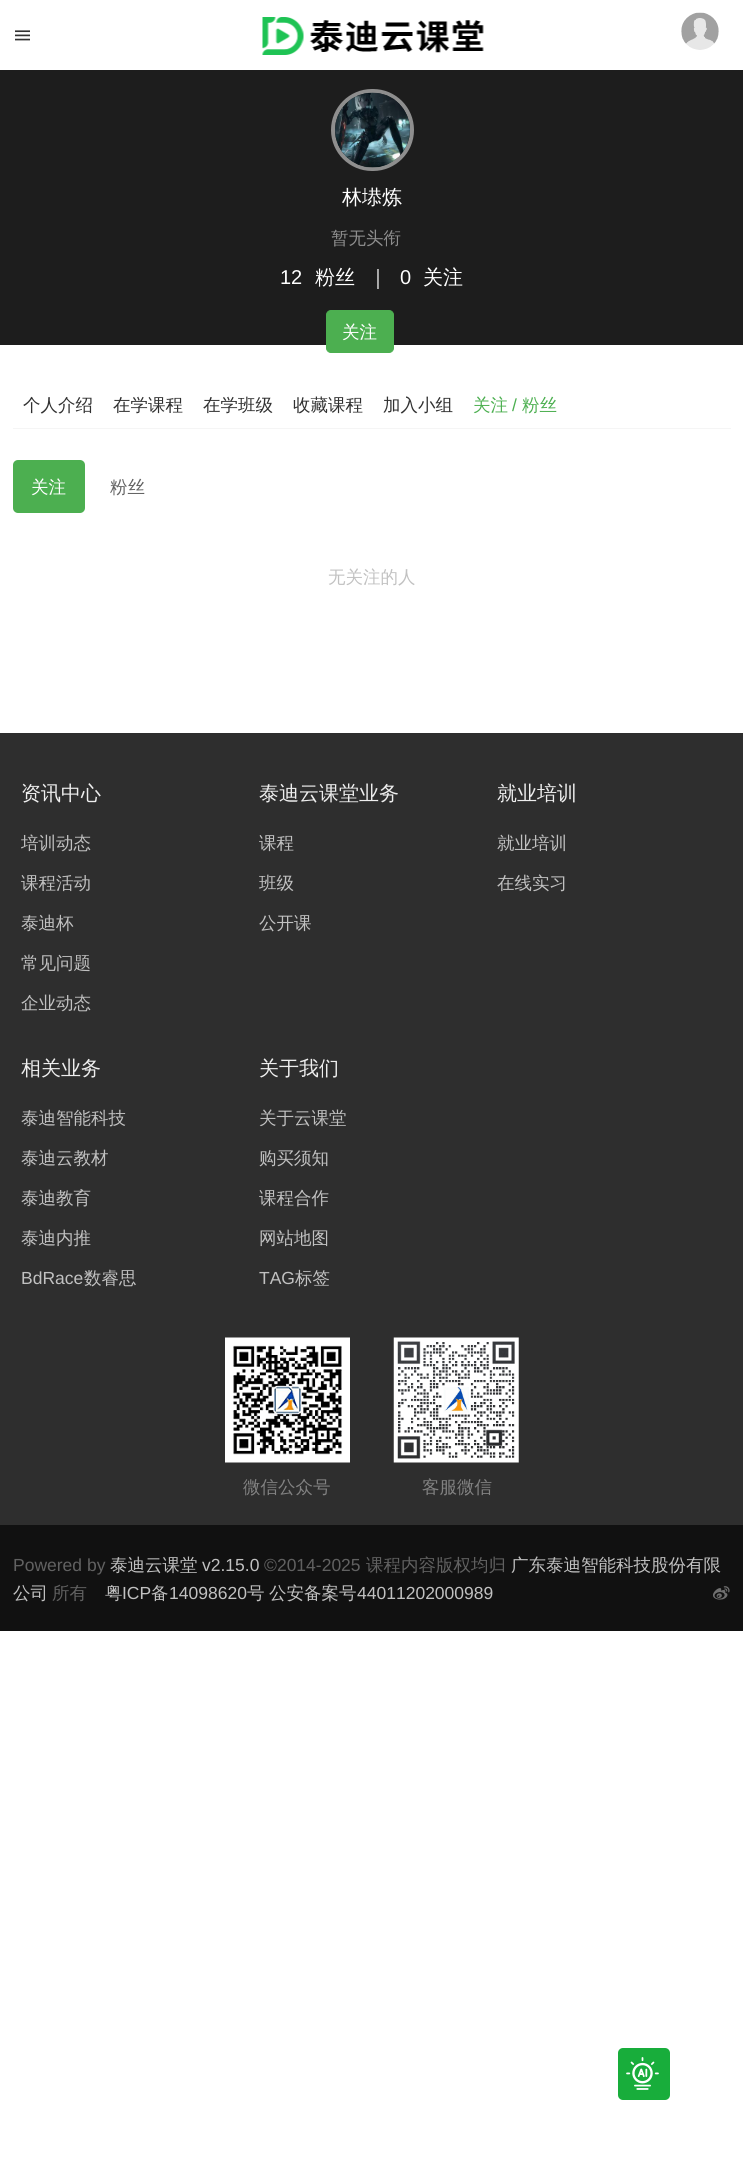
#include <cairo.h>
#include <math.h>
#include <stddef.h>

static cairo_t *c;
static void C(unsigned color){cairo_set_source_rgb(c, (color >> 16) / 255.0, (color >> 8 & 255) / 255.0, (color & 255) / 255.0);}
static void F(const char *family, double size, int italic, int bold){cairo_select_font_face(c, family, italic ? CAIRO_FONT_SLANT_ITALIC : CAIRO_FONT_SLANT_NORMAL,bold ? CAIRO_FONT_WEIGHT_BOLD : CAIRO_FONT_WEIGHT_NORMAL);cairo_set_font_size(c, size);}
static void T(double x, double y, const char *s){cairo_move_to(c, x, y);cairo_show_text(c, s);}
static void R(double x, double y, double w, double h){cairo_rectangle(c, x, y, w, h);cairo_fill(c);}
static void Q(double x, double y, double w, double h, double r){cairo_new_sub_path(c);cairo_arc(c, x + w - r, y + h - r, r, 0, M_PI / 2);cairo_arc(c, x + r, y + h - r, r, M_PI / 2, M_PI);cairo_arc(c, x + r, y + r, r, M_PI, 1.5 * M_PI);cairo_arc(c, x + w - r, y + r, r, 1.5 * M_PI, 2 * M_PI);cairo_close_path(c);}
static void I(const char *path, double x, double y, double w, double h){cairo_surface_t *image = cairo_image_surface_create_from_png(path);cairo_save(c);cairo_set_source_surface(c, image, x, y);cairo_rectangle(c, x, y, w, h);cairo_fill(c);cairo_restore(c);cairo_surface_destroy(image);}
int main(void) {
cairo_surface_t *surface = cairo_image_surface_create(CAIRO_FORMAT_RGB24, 743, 2175);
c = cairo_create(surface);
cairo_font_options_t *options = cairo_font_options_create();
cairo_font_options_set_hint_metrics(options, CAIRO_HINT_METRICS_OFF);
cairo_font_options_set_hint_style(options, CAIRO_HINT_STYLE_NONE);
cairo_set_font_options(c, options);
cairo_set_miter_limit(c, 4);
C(0xffffff);
cairo_paint(c);
I("1.png",15,30,15,11);
I("2.png",262,17,222,38);
I("3.png",681,12,38,38);
C(0x1d1d1d);
R(0,70,743,275);
Q(333,91,79,78,39);
C(0x8e8e8e);
cairo_set_line_width(c,4);
cairo_stroke(c);
I("4.png",335,92,75,76);
F("WenQuanYi Zen Hei Medium",20,0,0);
C(0xffffff);
T(342,204,"林塨炼");
F("WenQuanYi Zen Hei Medium",17.5,0,0);
C(0x8e8e8e);
T(331,244,"暂无头衔");
F("Liberation Sans",20,0,0);
C(0xffffff);
T(280,284,"12");
F("WenQuanYi Zen Hei Medium",20,0,0);
T(315,284,"粉丝");
T(368,284,"｜");
F("Liberation Sans",20,0,0);
T(400,284,"0");
F("WenQuanYi Zen Hei Medium",20,0,0);
T(423,284,"关注");
C(0x4caf50);
Q(326.5,310.5,67,42,4.5);
cairo_fill_preserve(c);
cairo_set_line_width(c,1);
cairo_stroke(c);
F("WenQuanYi Zen Hei Medium",17.5,0,0);
C(0xffffff);
T(342,338,"关注");
C(0xf5f5f5);
R(13,428,718,1);
C(0x313131);
T(23,411,"个人介绍");
T(113,411,"在学课程");
T(203,411,"在学班级");
T(293,411,"收藏课程");
T(383,411,"加入小组");
C(0x4caf50);
T(473,411,"关注");
F("Liberation Sans",17.5,0,0);
T(512,411,"/");
F("WenQuanYi Zen Hei Medium",17.5,0,0);
T(522,411,"粉丝");
Q(13,460,72,53,5);
cairo_fill(c);
C(0xffffff);
T(31,493,"关注");
C(0x616161);
T(110,493,"粉丝");
C(0xc1c1c1);
T(328,583,"无关注的人");
C(0x2e2e2e);
R(0,733,743,792);
C(0x111111);
R(0,1525,743,106);
F("WenQuanYi Zen Hei Medium",20,0,0);
C(0xeeeeee);
T(21,800,"资讯中心");
F("WenQuanYi Zen Hei Medium",17.5,0,0);
C(0xc1c1c1);
T(21,849,"培训动态");
T(21,889,"课程活动");
T(21,929,"泰迪杯");
T(21,969,"常见问题");
T(21,1009,"企业动态");
F("WenQuanYi Zen Hei Medium",20,0,0);
C(0xeeeeee);
T(259,800,"泰迪云课堂业务");
F("WenQuanYi Zen Hei Medium",17.5,0,0);
C(0xc1c1c1);
T(259,849,"课程");
T(259,889,"班级");
T(259,929,"公开课");
F("WenQuanYi Zen Hei Medium",20,0,0);
C(0xeeeeee);
T(497,800,"就业培训");
F("WenQuanYi Zen Hei Medium",17.5,0,0);
C(0xc1c1c1);
T(497,849,"就业培训");
T(497,889,"在线实习");
F("WenQuanYi Zen Hei Medium",20,0,0);
C(0xeeeeee);
T(21,1075,"相关业务");
F("WenQuanYi Zen Hei Medium",17.5,0,0);
C(0xc1c1c1);
T(21,1124,"泰迪智能科技");
T(21,1164,"泰迪云教材");
T(21,1204,"泰迪教育");
T(21,1244,"泰迪内推");
F("Liberation Sans",17.5,0,0);
T(21,1284,"BdRace");
F("WenQuanYi Zen Hei Medium",17.5,0,0);
T(84,1284,"数睿思");
F("WenQuanYi Zen Hei Medium",20,0,0);
C(0xeeeeee);
T(259,1075,"关于我们");
F("WenQuanYi Zen Hei Medium",17.5,0,0);
C(0xc1c1c1);
T(259,1124,"关于云课堂");
T(259,1164,"购买须知");
T(259,1204,"课程合作");
T(259,1244,"网站地图");
F("Liberation Sans",17.5,0,0);
T(259,1284,"TAG");
F("WenQuanYi Zen Hei Medium",17.5,0,0);
T(295,1284,"标签");
I("5.png",225,1337,125,126);
C(0x828282);
T(243,1493,"微信公众号");
I("6.png",393,1337,126,126);
T(422,1493,"客服微信");
F("Liberation Sans",17.5,0,0);
C(0x616161);
T(13,1571,"Powered by");
F("WenQuanYi Zen Hei Medium",17.5,0,0);
C(0xc1c1c1);
T(110,1571,"泰迪云课堂");
F("Liberation Sans",17.5,0,0);
T(202,1571,"v2.15.0");
C(0x616161);
T(264,1571,"©2014-2025");
F("WenQuanYi Zen Hei Medium",17.5,0,0);
T(366,1571,"课程内容版权均归");
C(0xc1c1c1);
T(511,1571,"广东泰迪智能科技股份有限");
T(13,1599,"公司");
C(0x616161);
T(52,1599,"所有");
C(0xc1c1c1);
T(105,1599,"粤");
F("Liberation Sans",17.5,0,0);
T(122,1599,"ICP");
F("WenQuanYi Zen Hei Medium",17.5,0,0);
T(151,1599,"备");
F("Liberation Sans",17.5,0,0);
T(169,1599,"14098620");
F("WenQuanYi Zen Hei Medium",17.5,0,0);
T(247,1599,"号");
T(269,1599,"公安备案号");
F("Liberation Sans",17.5,0,0);
T(357,1599,"44011202000989");
I("7.png",713,1586,17,14);
C(0x18ad3b);
Q(618,2048,52,52,5);
cairo_fill(c);
I("8.png",626,2057,33,33);
cairo_surface_write_to_png(surface, "o.png");
cairo_font_options_destroy(options);
cairo_destroy(c);
cairo_surface_destroy(surface);
return 0;
}
